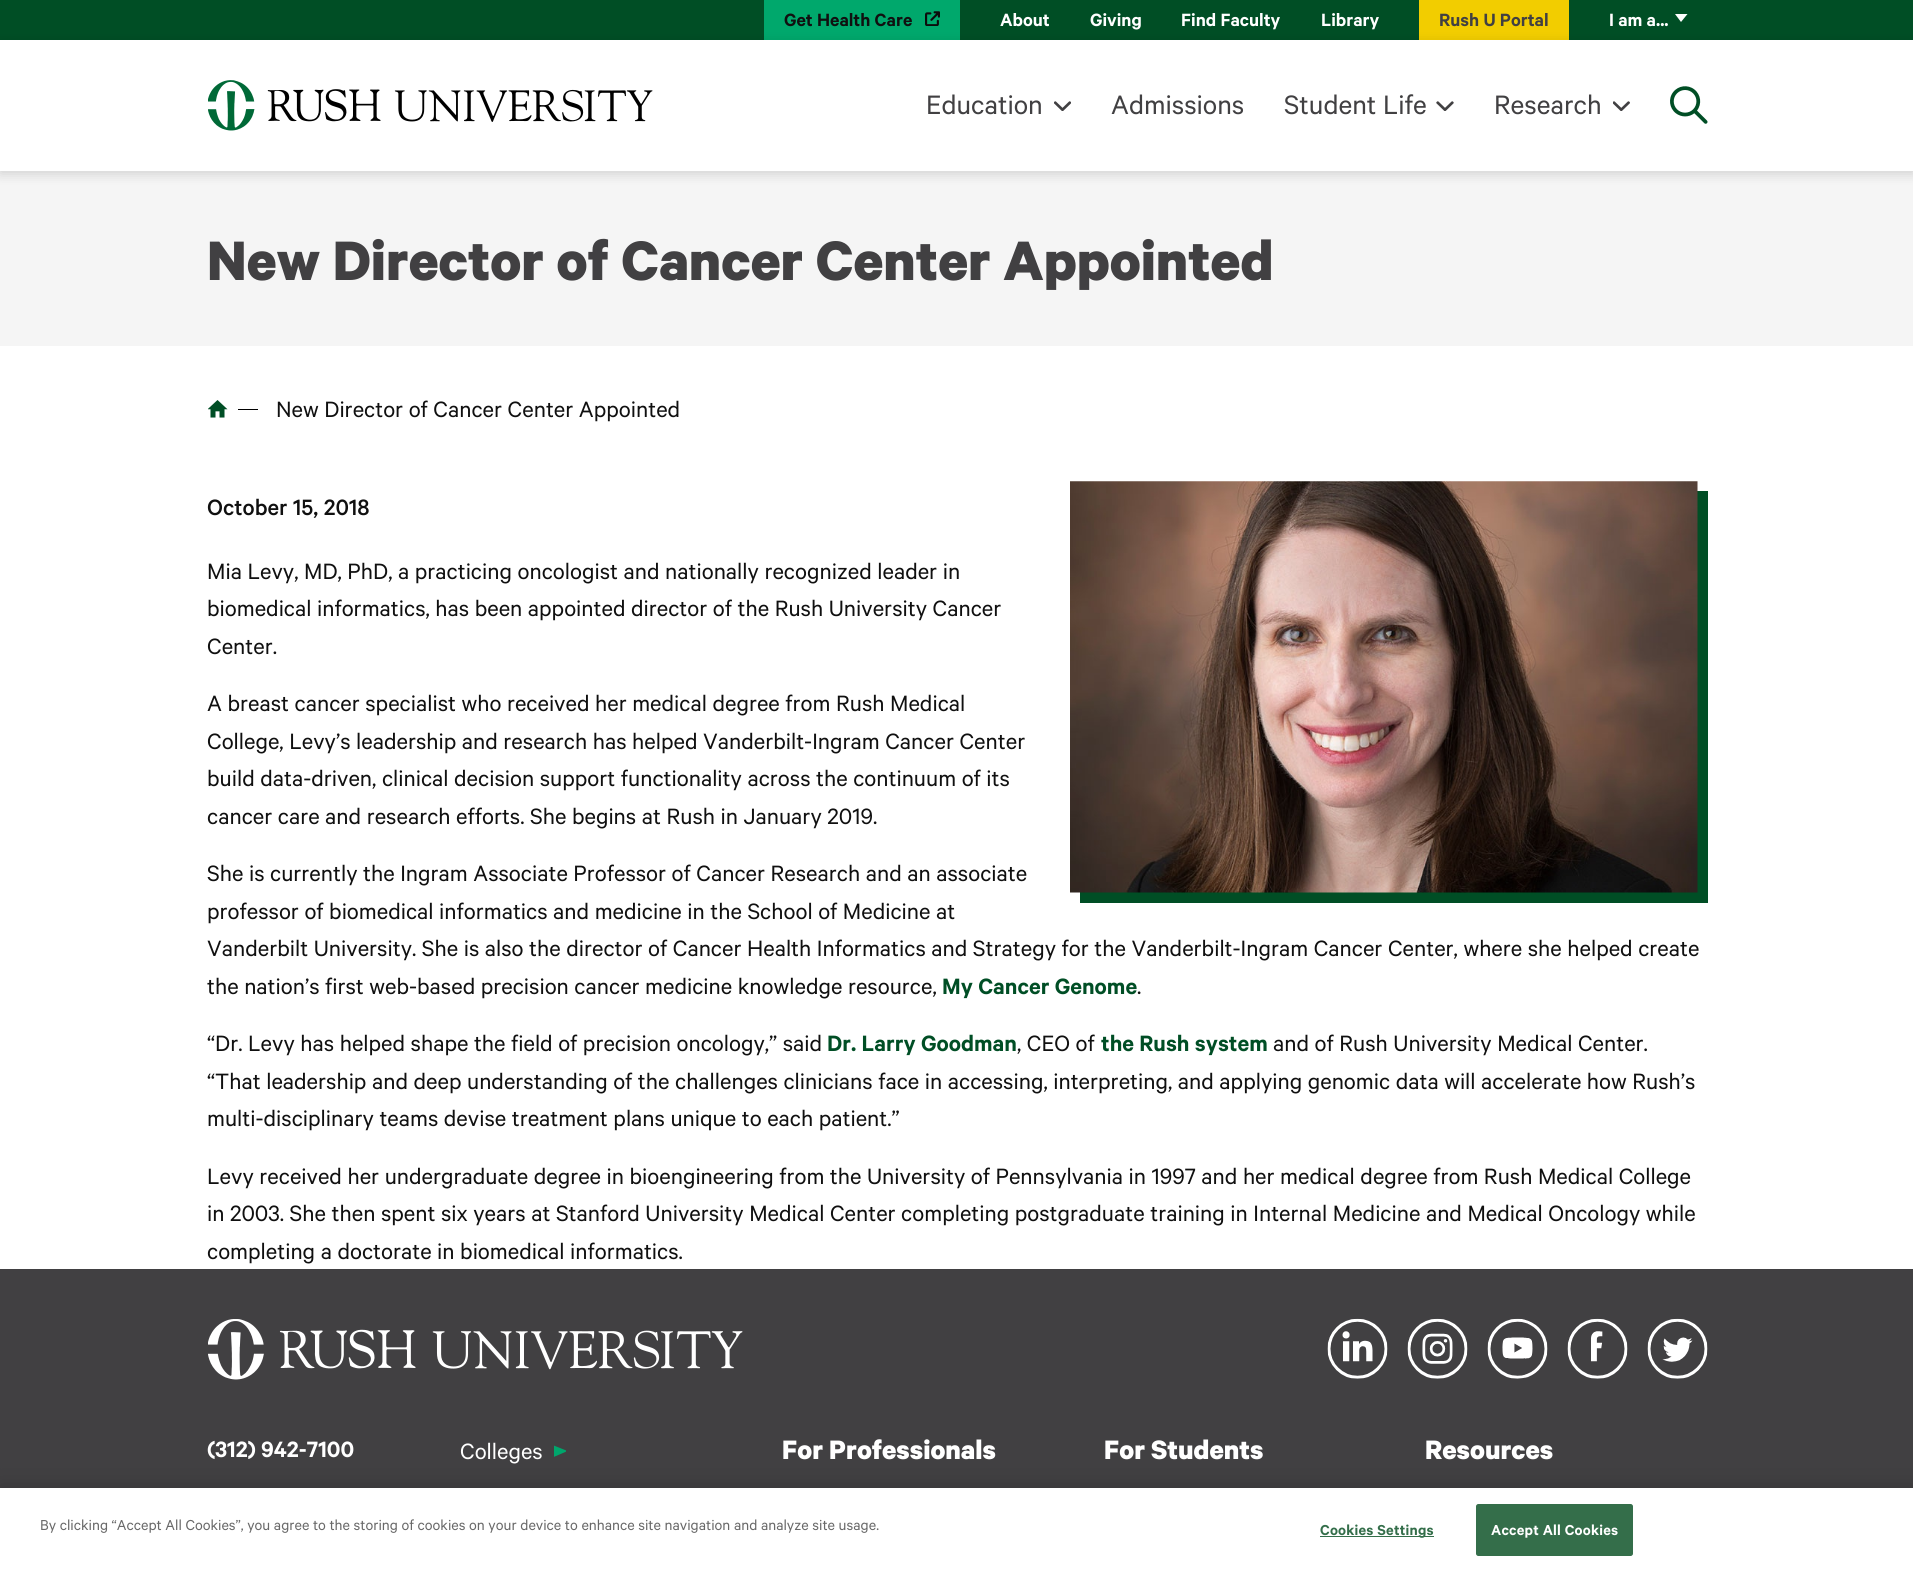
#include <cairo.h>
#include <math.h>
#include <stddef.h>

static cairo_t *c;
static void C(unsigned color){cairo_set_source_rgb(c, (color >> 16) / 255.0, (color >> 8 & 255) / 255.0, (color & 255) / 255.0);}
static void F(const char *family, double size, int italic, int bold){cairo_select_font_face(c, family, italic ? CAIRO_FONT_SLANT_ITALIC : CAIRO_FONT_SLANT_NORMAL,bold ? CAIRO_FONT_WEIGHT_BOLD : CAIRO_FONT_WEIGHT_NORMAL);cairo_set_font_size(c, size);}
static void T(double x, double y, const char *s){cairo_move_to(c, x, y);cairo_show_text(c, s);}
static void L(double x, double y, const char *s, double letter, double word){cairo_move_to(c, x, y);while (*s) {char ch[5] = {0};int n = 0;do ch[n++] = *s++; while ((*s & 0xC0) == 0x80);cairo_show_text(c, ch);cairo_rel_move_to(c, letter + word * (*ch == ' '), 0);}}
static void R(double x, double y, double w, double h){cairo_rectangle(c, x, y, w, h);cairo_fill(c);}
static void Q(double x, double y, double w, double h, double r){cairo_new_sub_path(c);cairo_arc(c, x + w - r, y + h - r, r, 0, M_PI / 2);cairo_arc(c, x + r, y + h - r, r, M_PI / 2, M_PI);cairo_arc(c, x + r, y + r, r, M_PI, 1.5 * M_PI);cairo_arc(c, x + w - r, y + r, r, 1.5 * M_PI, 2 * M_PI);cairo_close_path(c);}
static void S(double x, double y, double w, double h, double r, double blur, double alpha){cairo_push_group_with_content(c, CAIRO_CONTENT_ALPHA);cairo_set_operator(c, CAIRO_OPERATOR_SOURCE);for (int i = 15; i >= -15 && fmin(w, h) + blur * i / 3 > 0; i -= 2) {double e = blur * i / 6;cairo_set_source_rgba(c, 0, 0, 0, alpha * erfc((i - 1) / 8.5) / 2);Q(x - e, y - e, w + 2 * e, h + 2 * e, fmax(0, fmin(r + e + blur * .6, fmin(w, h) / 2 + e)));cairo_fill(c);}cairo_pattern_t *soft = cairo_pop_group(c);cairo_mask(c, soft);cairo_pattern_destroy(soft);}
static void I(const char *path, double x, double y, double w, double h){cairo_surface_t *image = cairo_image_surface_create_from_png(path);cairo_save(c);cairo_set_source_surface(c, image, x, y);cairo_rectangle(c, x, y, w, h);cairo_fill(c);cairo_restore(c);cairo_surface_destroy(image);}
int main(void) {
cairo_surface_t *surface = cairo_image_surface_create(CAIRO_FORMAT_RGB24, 1913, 1576);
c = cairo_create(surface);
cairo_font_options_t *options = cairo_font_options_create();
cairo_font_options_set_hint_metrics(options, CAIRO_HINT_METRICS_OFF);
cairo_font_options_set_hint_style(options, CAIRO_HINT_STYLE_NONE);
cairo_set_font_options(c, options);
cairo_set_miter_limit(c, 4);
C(0xffffff);
cairo_paint(c);
C(0x004e25);
R(0,0,1913,40);
C(0x00a86c);
R(764,0,196,40);
F("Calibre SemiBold",20,0,0);
C(0x101010);
T(784,26,"Get Health Care");
I("1.png",925,11,15,15);
C(0xffffff);
T(1000,26,"About");
T(1090,26,"Giving");
T(1181,26,"Find Faculty");
T(1321,26,"Library");
C(0xf2cd00);
R(1419,0,150,40);
C(0x414042);
T(1439,26,"Rush U Portal");
C(0xffffff);
T(1609,26,"I am a...");
cairo_set_fill_rule(c,CAIRO_FILL_RULE_EVEN_ODD);
cairo_new_path(c);
cairo_move_to(c,1681,22);
cairo_line_to(c,1687.5,14);
cairo_line_to(c,1675,14);
cairo_close_path(c);
cairo_fill(c);
C(0xf5f5f5);
R(0,171,1913,175);
cairo_save(c);
cairo_new_path(c);
cairo_move_to(c,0,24);
cairo_line_to(c,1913,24);
cairo_line_to(c,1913,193);
cairo_line_to(c,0,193);
cairo_close_path(c);
cairo_move_to(c,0,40);
cairo_line_to(c,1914,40);
cairo_line_to(c,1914,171);
cairo_line_to(c,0,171);
cairo_close_path(c);
cairo_clip(c);
C(0x000000);
S(0,43,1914,131,0,6,.15);
cairo_restore(c);
I("2.png",208,80,445,51);
F("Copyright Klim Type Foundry",30,0,0);
C(0x414042);
T(926,114,"Education");
I("3.png",1054,101,17,10);
T(1111,114,"Admissions");
T(1284,114,"Student Life");
I("4.png",1436,101,18,10);
T(1494,114,"Research");
I("5.png",1613,101,17,10);
I("6.png",1670,86,38,38);
F("Copyright Klim Type Foundry",62.5,0,1);
T(207,280,"New Director of Cancer Center Appointed");
I("7.png",208,400,20,18);
C(0x000000);
R(238,409,20,1);
F("Copyright Klim Type Foundry",25,0,0);
C(0x101010);
T(276,417,"New Director of Cancer Center Appointed");
F("Calibre Medium",25,0,0);
T(207,515,"October 15, 2018");
C(0x004e25);
R(1080,491,628,412);
I("8.png",1070,481,628,412);
F("Copyright Klim Type Foundry",25,0,0);
C(0x101010);
T(207,579,"Mia Levy, MD, PhD, a practicing oncologist and nationally recognized leader in");
T(207,616,"biomedical informatics, has been appointed director of the Rush University Cancer");
T(207,654,"Center.");
T(207,711,"A breast cancer specialist who received her medical degree from Rush Medical");
T(207,749,"College, Levy’s leadership and research has helped Vanderbilt-Ingram Cancer Center");
T(207,786,"build data-driven, clinical decision support functionality across the continuum of its");
T(207,824,"cancer care and research efforts. She begins at Rush in January 2019.");
T(207,881,"She is currently the Ingram Associate Professor of Cancer Research and an associate");
T(207,919,"professor of biomedical informatics and medicine in the School of Medicine at");
T(207,956,"Vanderbilt University. She is also the director of Cancer Health Informatics and Strategy for the Vanderbilt-Ingram Cancer Center, where she helped create");
T(207,994,"the nation’s first web-based precision cancer medicine knowledge resource,");
F("Calibre SemiBold",25,0,0);
C(0x004e25);
T(942,994,"My Cancer Genome");
F("Copyright Klim Type Foundry",25,0,0);
C(0x101010);
T(1137,994,".");
T(207,1051,"“Dr. Levy has helped shape the field of precision oncology,” said");
F("Calibre SemiBold",25,0,0);
C(0x004e25);
T(827,1051,"Dr. Larry Goodman");
F("Copyright Klim Type Foundry",25,0,0);
C(0x101010);
T(1017,1051,", CEO of");
F("Calibre SemiBold",25,0,0);
C(0x004e25);
T(1101,1051,"the Rush system");
F("Copyright Klim Type Foundry",25,0,0);
C(0x101010);
T(1273,1051,"and of Rush University Medical Center.");
T(207,1089,"“That leadership and deep understanding of the challenges clinicians face in accessing, interpreting, and applying genomic data will accelerate how Rush’s");
T(207,1126,"multi-disciplinary teams devise treatment plans unique to each patient.”");
T(207,1184,"Levy received her undergraduate degree in bioengineering from the University of Pennsylvania in 1997 and her medical degree from Rush Medical College");
T(207,1221,"in 2003. She then spent six years at Stanford University Medical Center completing postgraduate training in Internal Medicine and Medical Oncology while");
T(207,1259,"completing a doctorate in biomedical informatics.");
C(0x414042);
R(0,1269,1913,219);
I("9.png",208,1319,535,61);
I("10.png",1327,1318,61,61);
I("11.png",1407,1318,61,61);
I("12.png",1487,1318,61,61);
I("13.png",1567,1318,61,61);
I("14.png",1647,1318,61,61);
F("Calibre SemiBold",25,0,0);
C(0xffffff);
T(207,1457,"(312) 942-7100");
F("Copyright Klim Type Foundry",25,0,0);
T(460,1459,"Colleges");
cairo_save(c);
cairo_set_fill_rule(c,CAIRO_FILL_RULE_WINDING);
cairo_rectangle(c,554,1445,12,13);
cairo_clip(c);
C(0x00a66c);
cairo_set_fill_rule(c,CAIRO_FILL_RULE_EVEN_ODD);
cairo_new_path(c);
cairo_move_to(c,567.5,1451);
cairo_line_to(c,552.5,1457.5);
cairo_line_to(c,552.5,1445);
cairo_close_path(c);
cairo_fill(c);
cairo_restore(c);
F("Copyright Klim Type Foundry",30,0,1);
T(782,1459,"For Professionals");
T(1104,1459,"For Students");
T(1425,1459,"Resources");
C(0x000000);
S(0,1488,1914,88,0,11,.2);
C(0xffffff);
R(0,1488,1913,88);
F("Copyright Klim Type Foundry",16.25,0,0);
C(0x696969);
T(40,1530,"By clicking “Accept All Cookies”, you agree to the storing of cookies on your device to enhance site navigation and analyze site usage.");
C(0x346e4a);
R(1320,1536,114,1);
F("Calibre SemiBold",16.25,0,0);
L(1320,1535,"Cookies Settings",.2,0);
Q(1476.5,1504.5,156,51,2);
cairo_fill_preserve(c);
cairo_set_line_width(c,1);
cairo_stroke(c);
C(0xffffff);
L(1491,1535,"Accept All Cookies",.2,0);
cairo_surface_write_to_png(surface, "o.png");
cairo_font_options_destroy(options);
cairo_destroy(c);
cairo_surface_destroy(surface);
return 0;
}
